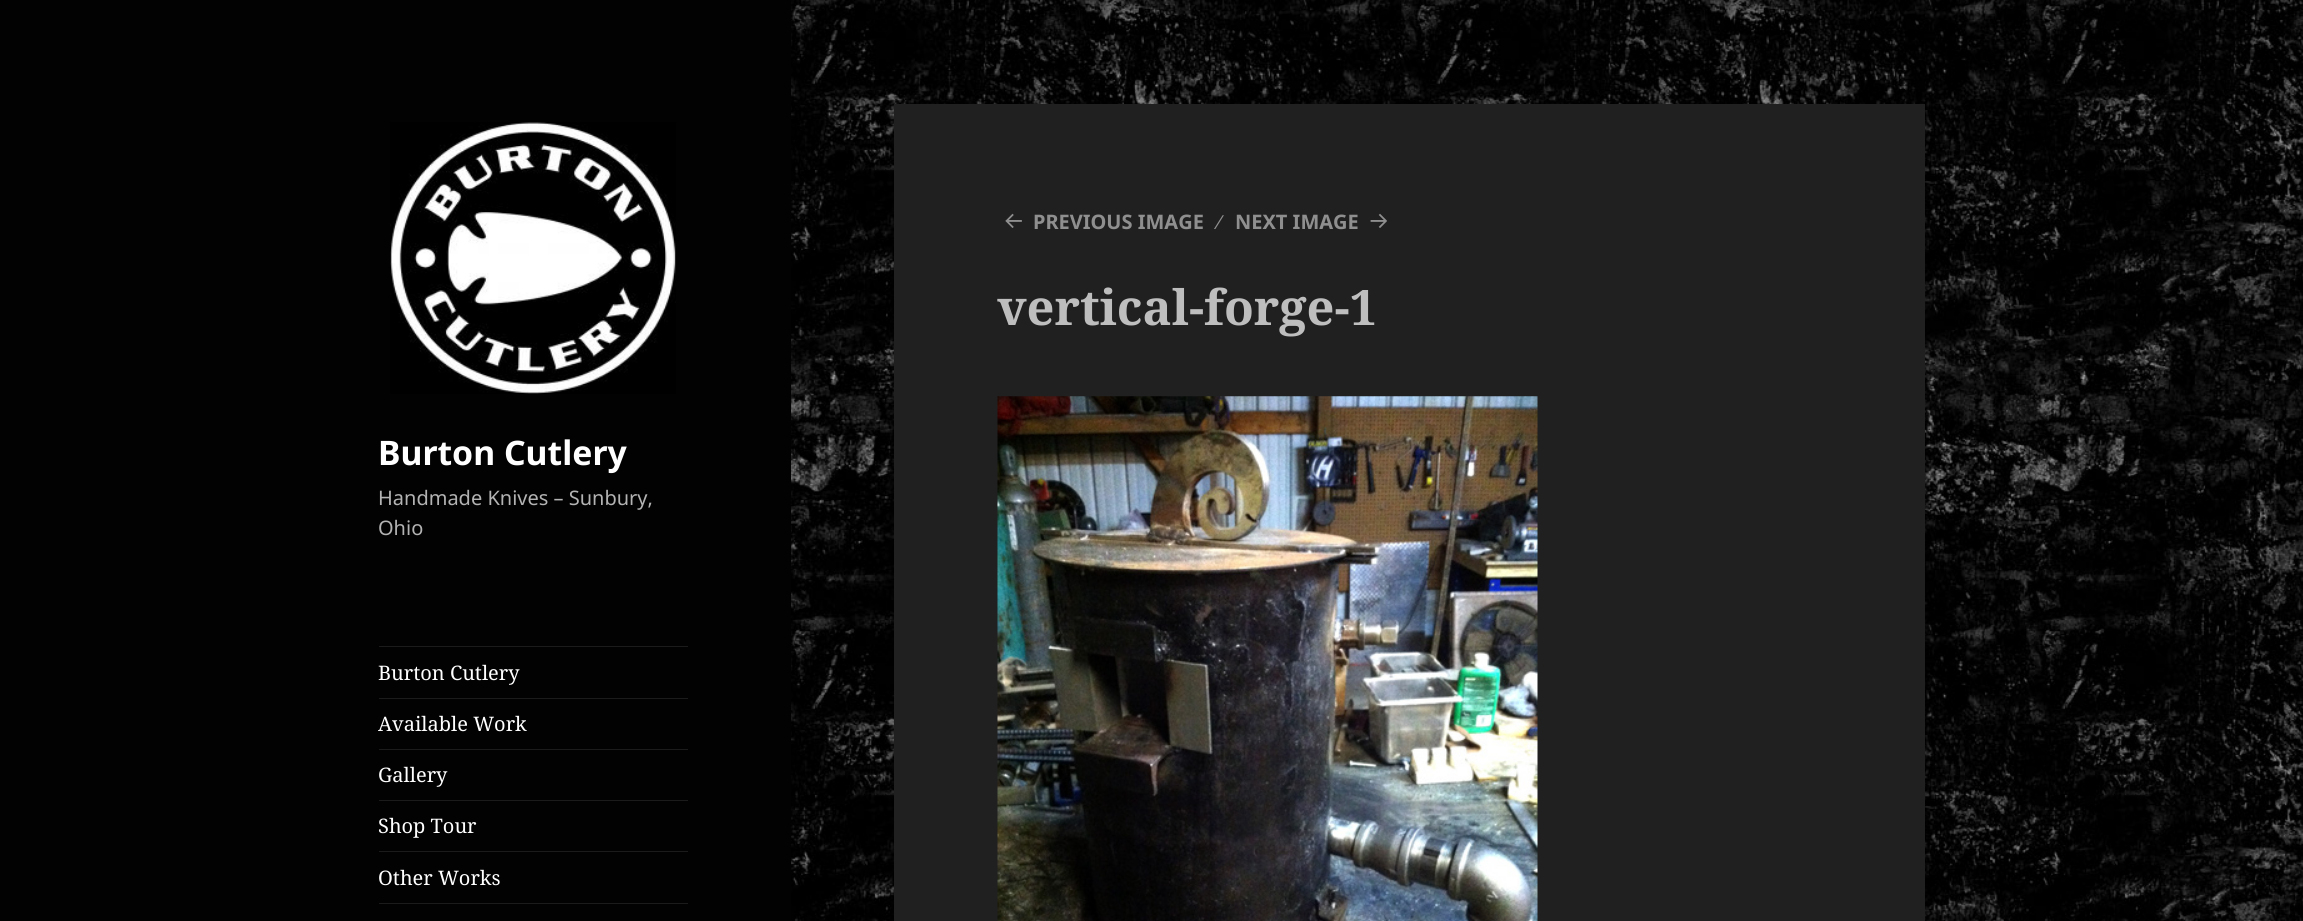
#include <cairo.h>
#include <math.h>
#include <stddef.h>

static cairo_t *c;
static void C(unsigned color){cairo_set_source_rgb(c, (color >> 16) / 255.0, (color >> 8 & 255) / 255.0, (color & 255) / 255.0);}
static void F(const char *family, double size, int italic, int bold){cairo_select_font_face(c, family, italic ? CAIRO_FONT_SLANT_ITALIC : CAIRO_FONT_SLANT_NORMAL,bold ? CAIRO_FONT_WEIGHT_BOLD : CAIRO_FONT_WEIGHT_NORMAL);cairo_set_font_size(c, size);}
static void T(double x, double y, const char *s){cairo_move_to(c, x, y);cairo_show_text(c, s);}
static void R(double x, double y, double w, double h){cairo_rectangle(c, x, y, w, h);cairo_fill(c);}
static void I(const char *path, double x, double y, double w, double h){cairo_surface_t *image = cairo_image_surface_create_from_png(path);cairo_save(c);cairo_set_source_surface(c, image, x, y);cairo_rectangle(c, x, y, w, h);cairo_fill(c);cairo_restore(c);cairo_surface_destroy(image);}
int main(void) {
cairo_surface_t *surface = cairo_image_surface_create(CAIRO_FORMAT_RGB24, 2303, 921);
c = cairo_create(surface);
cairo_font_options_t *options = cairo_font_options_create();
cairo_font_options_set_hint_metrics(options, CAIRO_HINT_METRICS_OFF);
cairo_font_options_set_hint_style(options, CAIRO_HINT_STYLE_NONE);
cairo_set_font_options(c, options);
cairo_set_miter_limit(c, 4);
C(0xffffff);
cairo_paint(c);
I("1.png",791,0,1512,921);
C(0x020202);
R(0,0,791,921);
C(0x202020);
R(894,104,1031,817);
I("2.png",1005,213,17,15);
F("Noto Sans",20,0,1);
C(0x8f8f8f);
T(1033,229,"PREVIOUS IMAGE");
F("Liberation Sans",20,0,0);
T(1218,229,"∕");
F("Noto Sans",20,0,1);
T(1235,229,"NEXT IMAGE");
I("3.png",1370,213,17,15);
F("Noto Serif",48.75,0,1);
C(0xbebebe);
T(997,325,"vertical-forge-1");
I("4.png",997,396,541,525);
I("5.png",390,122,286,272);
F("Noto Sans",33.75,0,1);
C(0xffffff);
T(378,465,"Burton Cutlery");
F("Noto Sans",20,0,0);
C(0xb3b3b3);
T(378,505,"Handmade Knives – Sunbury,");
T(378,535,"Ohio");
C(0x1b1b1b);
R(379,646,309,1);
F("Noto Serif",20,0,0);
C(0xffffff);
T(378,680,"Burton Cutlery");
C(0x1b1b1b);
R(379,698,309,1);
C(0xffffff);
T(378,731,"Available Work");
C(0x1b1b1b);
R(379,749,309,1);
C(0xffffff);
T(378,782,"Gallery");
C(0x1b1b1b);
R(379,800,309,1);
C(0xffffff);
T(378,833,"Shop Tour");
C(0x1b1b1b);
R(379,851,309,1);
C(0xffffff);
T(378,885,"Other Works");
C(0x1b1b1b);
R(379,903,309,1);
cairo_surface_write_to_png(surface, "o.png");
cairo_font_options_destroy(options);
cairo_destroy(c);
cairo_surface_destroy(surface);
return 0;
}
